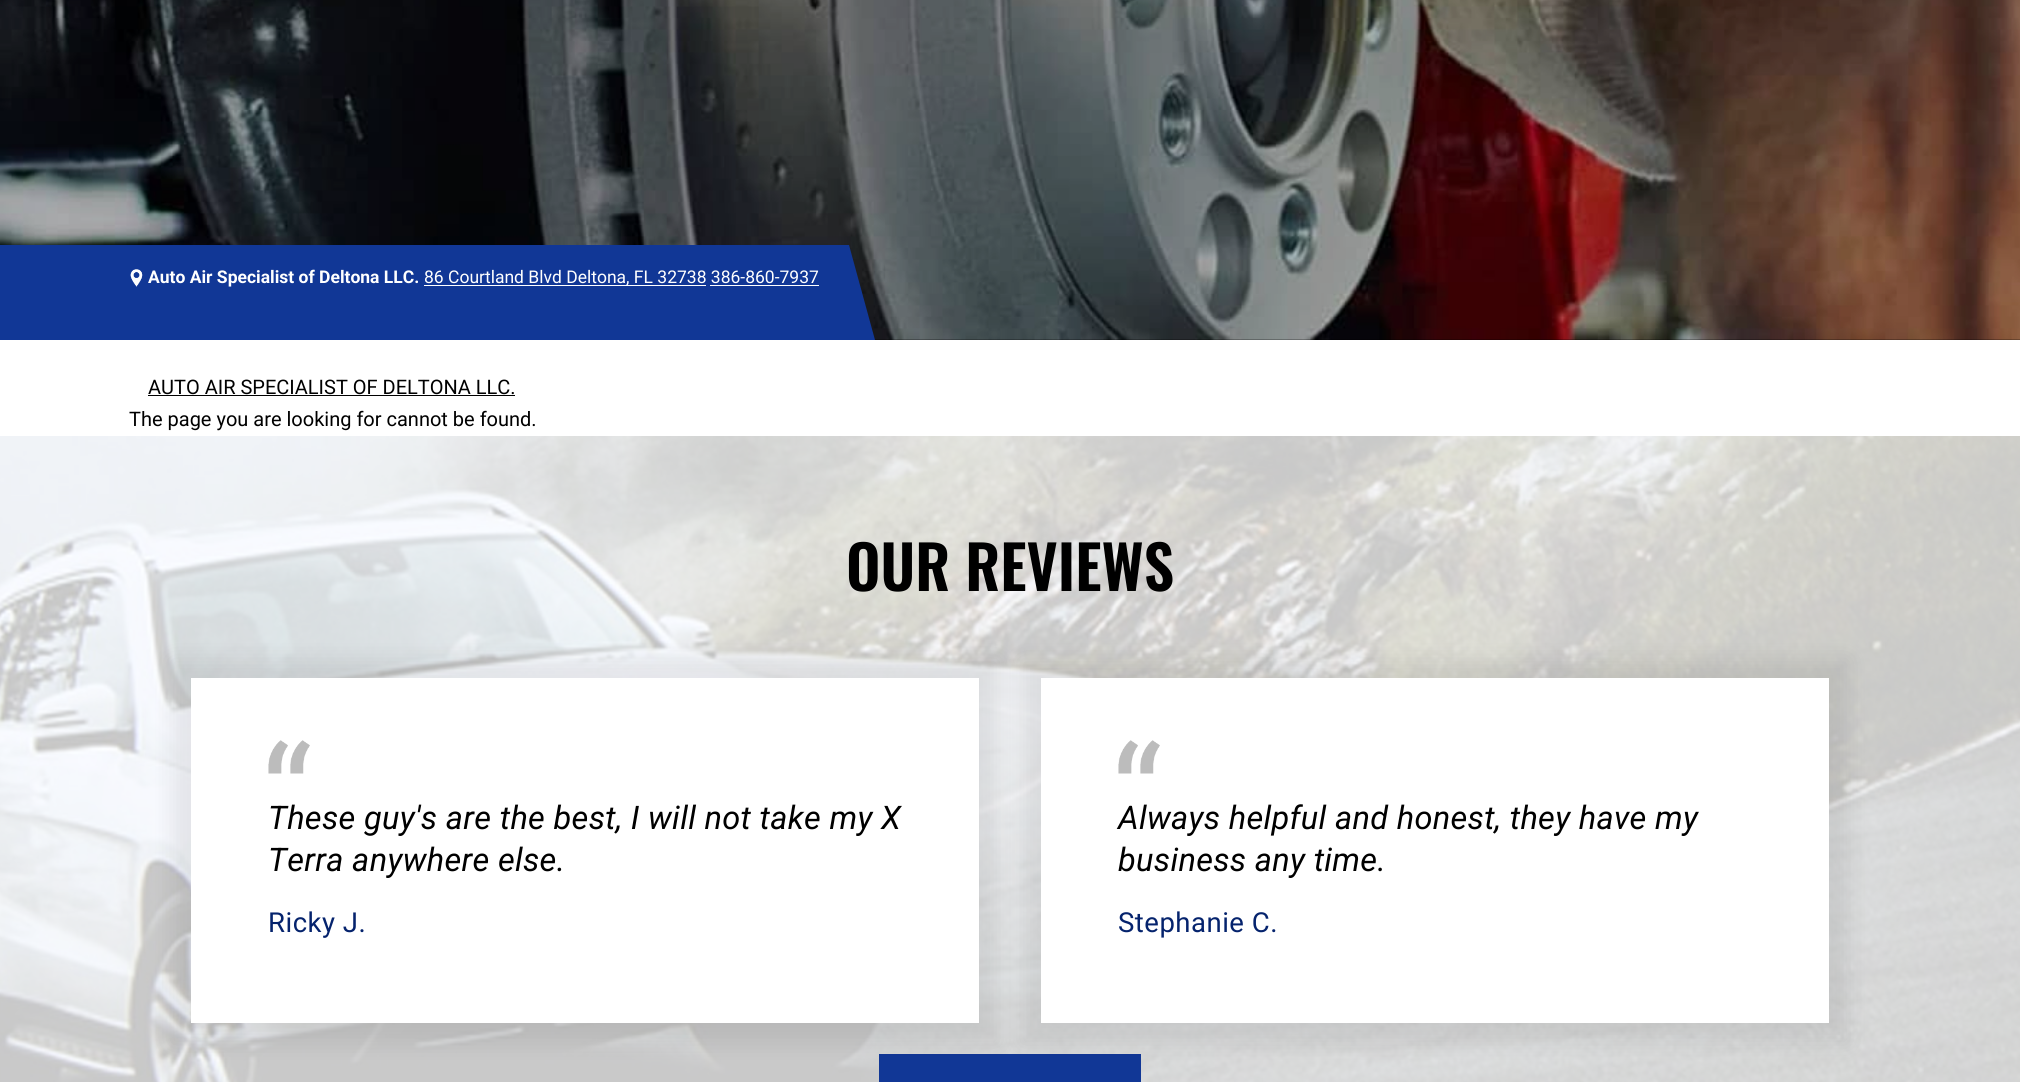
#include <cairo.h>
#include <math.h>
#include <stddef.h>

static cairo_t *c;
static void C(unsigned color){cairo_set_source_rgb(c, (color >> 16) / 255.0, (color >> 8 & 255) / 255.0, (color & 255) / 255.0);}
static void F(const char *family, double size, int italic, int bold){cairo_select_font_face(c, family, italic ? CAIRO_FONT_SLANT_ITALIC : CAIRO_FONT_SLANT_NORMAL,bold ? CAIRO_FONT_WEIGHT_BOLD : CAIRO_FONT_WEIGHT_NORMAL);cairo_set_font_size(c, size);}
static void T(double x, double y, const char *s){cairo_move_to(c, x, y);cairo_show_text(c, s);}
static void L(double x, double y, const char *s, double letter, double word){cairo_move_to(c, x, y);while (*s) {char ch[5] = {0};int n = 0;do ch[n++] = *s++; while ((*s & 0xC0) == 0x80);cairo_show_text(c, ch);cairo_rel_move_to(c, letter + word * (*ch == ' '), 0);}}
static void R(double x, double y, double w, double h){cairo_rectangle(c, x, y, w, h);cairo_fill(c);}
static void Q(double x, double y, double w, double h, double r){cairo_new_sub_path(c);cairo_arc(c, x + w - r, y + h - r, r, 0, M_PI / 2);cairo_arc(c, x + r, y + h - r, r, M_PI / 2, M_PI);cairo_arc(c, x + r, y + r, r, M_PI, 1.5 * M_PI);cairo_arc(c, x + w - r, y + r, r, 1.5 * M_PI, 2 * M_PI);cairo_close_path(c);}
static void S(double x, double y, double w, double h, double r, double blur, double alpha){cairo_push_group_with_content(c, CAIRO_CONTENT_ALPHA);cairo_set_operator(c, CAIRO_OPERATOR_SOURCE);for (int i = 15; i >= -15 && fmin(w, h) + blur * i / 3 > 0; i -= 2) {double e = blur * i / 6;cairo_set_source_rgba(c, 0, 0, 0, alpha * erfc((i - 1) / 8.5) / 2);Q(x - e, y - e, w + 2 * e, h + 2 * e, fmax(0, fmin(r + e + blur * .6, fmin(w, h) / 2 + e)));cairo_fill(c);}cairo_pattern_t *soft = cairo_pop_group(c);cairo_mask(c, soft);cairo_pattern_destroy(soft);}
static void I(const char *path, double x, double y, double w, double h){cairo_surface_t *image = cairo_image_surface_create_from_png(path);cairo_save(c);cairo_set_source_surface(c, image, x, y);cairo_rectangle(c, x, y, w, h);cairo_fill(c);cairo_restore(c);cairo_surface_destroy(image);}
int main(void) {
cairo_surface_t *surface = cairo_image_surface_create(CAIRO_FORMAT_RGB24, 2020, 1082);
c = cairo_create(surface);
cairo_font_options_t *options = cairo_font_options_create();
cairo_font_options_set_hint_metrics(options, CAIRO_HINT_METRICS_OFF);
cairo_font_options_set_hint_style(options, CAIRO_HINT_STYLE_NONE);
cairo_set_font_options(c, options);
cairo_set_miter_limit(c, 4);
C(0xffffff);
cairo_paint(c);
C(0x000000);
R(0,0,2020,340);
I("1.png",0,0,2020,340);
C(0x113796);
cairo_new_path(c);
cairo_move_to(c,0,245);
cairo_line_to(c,0,340);
cairo_line_to(c,875,340);
cairo_line_to(c,849,245);
cairo_close_path(c);
cairo_fill(c);
I("2.png",130,269,13,18);
F("Roboto",17.5,0,1);
C(0xffffff);
T(148,283,"Auto Air Specialist of Deltona LLC.");
R(424,285,282,1);
F("Roboto",17.5,0,0);
T(424,283,"86 Courtland Blvd Deltona, FL 32738 386-860-7937");
R(710,285,109,1);
F("Roboto",20,0,0);
C(0x000000);
T(148,394,"AUTO AIR SPECIALIST OF DELTONA LLC.");
R(148,395,367,1);
T(129,426,"The page you are looking for cannot be found.");
I("3.png",0,436,2020,646);
F("Oswald SemiBold",60,0,0);
T(846,591,"OUR REVIEWS");
C(0x113796);
R(879,1054,262,28);
C(0x000101);
S(171,659,828,385,0,10.5,.08);
C(0xffffff);
R(191,678,788,345);
I("4.png",268,740,42,34);
F("Roboto",32.5,1,0);
C(0x000000);
L(268,829,"These guy's are the best, I will not take my X",.35,0);
L(268,871,"Terra anywhere else.",.35,0);
F("Roboto",27.5,0,0);
C(0x05236d);
L(268,932,"Ricky J.",.5,0);
C(0x000101);
S(1021,659,828,385,0,10.5,.08);
C(0xffffff);
R(1041,678,788,345);
I("5.png",1118,740,42,34);
F("Roboto",32.5,1,0);
C(0x000000);
L(1118,829,"Always helpful and honest, they have my",.35,0);
L(1118,871,"business any time.",.35,0);
F("Roboto",27.5,0,0);
C(0x05236d);
L(1118,932,"Stephanie C.",.5,0);
cairo_surface_write_to_png(surface, "o.png");
cairo_font_options_destroy(options);
cairo_destroy(c);
cairo_surface_destroy(surface);
return 0;
}
